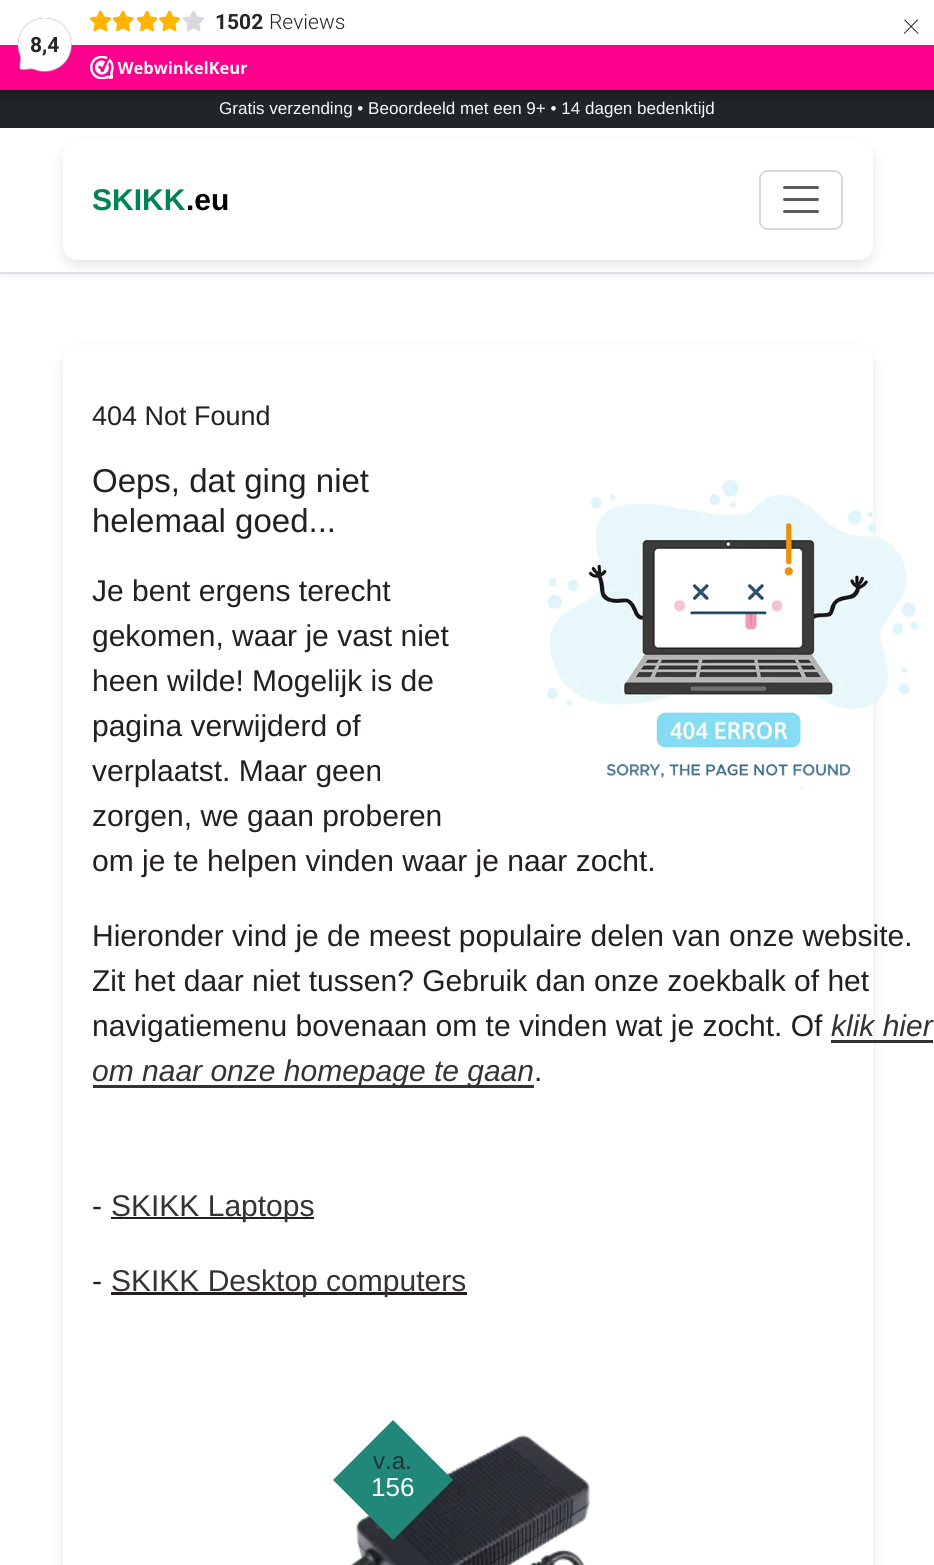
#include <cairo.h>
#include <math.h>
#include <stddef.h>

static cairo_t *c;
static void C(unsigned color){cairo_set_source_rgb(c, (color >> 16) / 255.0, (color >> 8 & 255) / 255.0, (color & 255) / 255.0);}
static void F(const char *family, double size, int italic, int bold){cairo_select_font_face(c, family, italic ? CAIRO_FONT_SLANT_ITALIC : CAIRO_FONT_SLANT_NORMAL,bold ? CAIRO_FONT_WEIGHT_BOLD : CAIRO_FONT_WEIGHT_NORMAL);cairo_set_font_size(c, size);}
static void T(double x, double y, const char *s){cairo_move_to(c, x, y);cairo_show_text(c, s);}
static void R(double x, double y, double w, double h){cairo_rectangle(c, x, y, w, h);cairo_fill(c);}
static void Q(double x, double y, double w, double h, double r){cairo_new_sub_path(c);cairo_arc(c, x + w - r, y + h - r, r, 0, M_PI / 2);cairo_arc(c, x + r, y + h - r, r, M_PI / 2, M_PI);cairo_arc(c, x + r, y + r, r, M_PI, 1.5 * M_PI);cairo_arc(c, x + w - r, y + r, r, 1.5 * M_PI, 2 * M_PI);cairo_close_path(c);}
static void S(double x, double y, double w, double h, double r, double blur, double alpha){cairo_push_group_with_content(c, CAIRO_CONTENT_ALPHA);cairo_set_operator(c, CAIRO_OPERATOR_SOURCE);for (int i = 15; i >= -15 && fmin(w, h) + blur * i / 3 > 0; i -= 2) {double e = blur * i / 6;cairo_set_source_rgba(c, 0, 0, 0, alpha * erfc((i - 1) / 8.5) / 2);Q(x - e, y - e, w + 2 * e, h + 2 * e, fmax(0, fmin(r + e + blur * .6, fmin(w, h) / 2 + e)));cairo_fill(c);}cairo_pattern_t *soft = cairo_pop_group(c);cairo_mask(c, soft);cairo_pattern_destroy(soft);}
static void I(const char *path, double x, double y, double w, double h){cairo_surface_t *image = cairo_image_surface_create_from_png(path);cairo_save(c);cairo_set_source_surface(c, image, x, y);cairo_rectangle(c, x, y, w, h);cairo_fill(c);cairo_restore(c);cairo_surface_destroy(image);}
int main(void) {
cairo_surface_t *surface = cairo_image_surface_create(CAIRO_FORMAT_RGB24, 934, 1565);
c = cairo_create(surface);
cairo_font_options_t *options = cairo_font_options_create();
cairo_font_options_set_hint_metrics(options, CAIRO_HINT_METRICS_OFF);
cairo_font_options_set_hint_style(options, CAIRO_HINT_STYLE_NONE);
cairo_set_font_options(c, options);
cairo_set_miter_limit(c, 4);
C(0xffffff);
cairo_paint(c);
C(0x212529);
R(0,90,934,38);
C(0x000000);
S(-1,-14,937,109,0,4.5,.15);
S(0,3,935,90,0,7.5,.15);
C(0xffffff);
R(0,0,934,45);
I("1.png",90,11,21,21);
I("2.png",113,11,21,21);
I("2.png",137,11,21,21);
I("1.png",159,11,21,21);
I("3.png",183,11,21,21);
F("Roboto",21,0,1);
C(0x272626);
T(215,29,"1502");
F("Roboto Light",21,0,0);
T(269,29,"Reviews");
F("Roboto Thin",36,0,0);
T(902,34,"×");
C(0xfe008c);
R(0,45,934,45);
I("4.png",17,17,56,56);
F("Roboto",21,0,1);
C(0x272626);
T(30,52,"8,4");
I("5.png",90,56,158,24);
F("Liberation Sans",17.05,0,0);
C(0xf8f9fa);
T(219,114,"Gratis verzending • Beoordeeld met een 9+ • 14 dagen bedenktijd");
cairo_save(c);
cairo_rectangle(c,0,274,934,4);
cairo_clip(c);
C(0x000000);
S(0,131,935,145,0,3,.07);
cairo_restore(c);
C(0xdee2e6);
R(0,272,934,2);
cairo_save(c);
cairo_set_fill_rule(c,CAIRO_FILL_RULE_EVEN_ODD);
cairo_new_path(c);
cairo_move_to(c,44,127);
cairo_line_to(c,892,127);
cairo_line_to(c,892,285);
cairo_line_to(c,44,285);
cairo_close_path(c);
cairo_move_to(c,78,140);
cairo_line_to(c,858,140);
cairo_curve_to(c,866.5,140,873,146.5,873,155);
cairo_line_to(c,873,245);
cairo_curve_to(c,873,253.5,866.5,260,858,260);
cairo_line_to(c,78,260);
cairo_curve_to(c,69.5,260,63,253.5,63,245);
cairo_line_to(c,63,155);
cairo_curve_to(c,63,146.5,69.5,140,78,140);
cairo_close_path(c);
cairo_clip(c);
C(0x000000);
S(63,146,810,120,15,6,.1);
cairo_restore(c);
F("Liberation Sans",30,0,1);
C(0x008356);
T(92,210,"SKIKK");
C(0x000000);
T(186,210,".eu");
Q(760,171,82,58,8);
C(0xd9d9d9);
cairo_stroke(c);
cairo_new_path(c);
cairo_move_to(c,784.5,187.5);
cairo_line_to(c,817.5,187.5);
cairo_move_to(c,784.5,199.5);
cairo_line_to(c,817.5,199.5);
cairo_move_to(c,784.5,211.5);
cairo_line_to(c,817.5,211.5);
C(0x595c5f);
cairo_set_line_width(c,3);
cairo_set_line_cap(c,CAIRO_LINE_CAP_ROUND);
cairo_stroke(c);
cairo_save(c);
cairo_set_fill_rule(c,CAIRO_FILL_RULE_EVEN_ODD);
cairo_new_path(c);
cairo_move_to(c,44,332);
cairo_line_to(c,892,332);
cairo_line_to(c,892,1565);
cairo_line_to(c,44,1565);
cairo_close_path(c);
cairo_move_to(c,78,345);
cairo_line_to(c,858,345);
cairo_curve_to(c,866.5,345,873,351.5,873,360);
cairo_line_to(c,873,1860);
cairo_curve_to(c,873,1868.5,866.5,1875,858,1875);
cairo_line_to(c,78,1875);
cairo_curve_to(c,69.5,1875,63,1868.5,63,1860);
cairo_line_to(c,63,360);
cairo_curve_to(c,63,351.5,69.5,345,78,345);
cairo_close_path(c);
cairo_clip(c);
C(0x000000);
S(63,351,810,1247,15,6,.1);
cairo_restore(c);
F("Liberation Sans",27,0,0);
C(0x231f20);
T(92,425,"404 Not Found");
F("Liberation Sans",33,0,0);
T(92,492,"Oeps, dat ging niet");
I("6.png",547,480,372,309);
T(92,532,"helemaal goed...");
F("Liberation Sans",30,0,0);
T(92,601,"Je bent ergens terecht");
T(92,646,"gekomen, waar je vast niet");
T(92,691,"heen wilde! Mogelijk is de");
T(92,736,"pagina verwijderd of");
T(92,781,"verplaatst. Maar geen");
T(92,826,"zorgen, we gaan proberen");
T(92,871,"om je te helpen vinden waar je naar zocht.");
T(92,946,"Hieronder vind je de meest populaire delen van onze website.");
T(92,991,"Zit het daar niet tussen? Gebruik dan onze zoekbalk of het");
T(92,1036,"navigatiemenu bovenaan om te vinden wat je zocht. Of");
F("Liberation Sans",30,1,0);
C(0x333333);
T(831,1036,"klik hier");
R(831,1040,102,3);
R(93,1085,441,3);
T(92,1081,"om naar onze homepage te gaan");
F("Liberation Sans",30,0,0);
C(0x231f20);
T(534,1081,".");
T(92,1216,"-");
R(111,1217,203,2);
C(0x333333);
T(111,1216,"SKIKK Laptops");
C(0x231f20);
T(92,1291,"-");
R(111,1292,356,3);
C(0x333333);
T(111,1291,"SKIKK Desktop computers");
I("7.png",350,1435,240,130);
C(0x208779);
cairo_new_path(c);
cairo_move_to(c,453,1480);
cairo_line_to(c,333,1480);
cairo_line_to(c,393,1420);
cairo_close_path(c);
cairo_fill(c);
F("Liberation Sans",24,0,0);
C(0x223432);
T(373,1469,"v.a.");
C(0x208779);
cairo_new_path(c);
cairo_move_to(c,333,1480);
cairo_line_to(c,453,1480);
cairo_line_to(c,393,1540);
cairo_close_path(c);
cairo_fill(c);
F("Liberation Sans",26,0,0);
C(0xffffff);
T(371,1496,"156");
cairo_surface_write_to_png(surface, "o.png");
cairo_font_options_destroy(options);
cairo_destroy(c);
cairo_surface_destroy(surface);
return 0;
}
